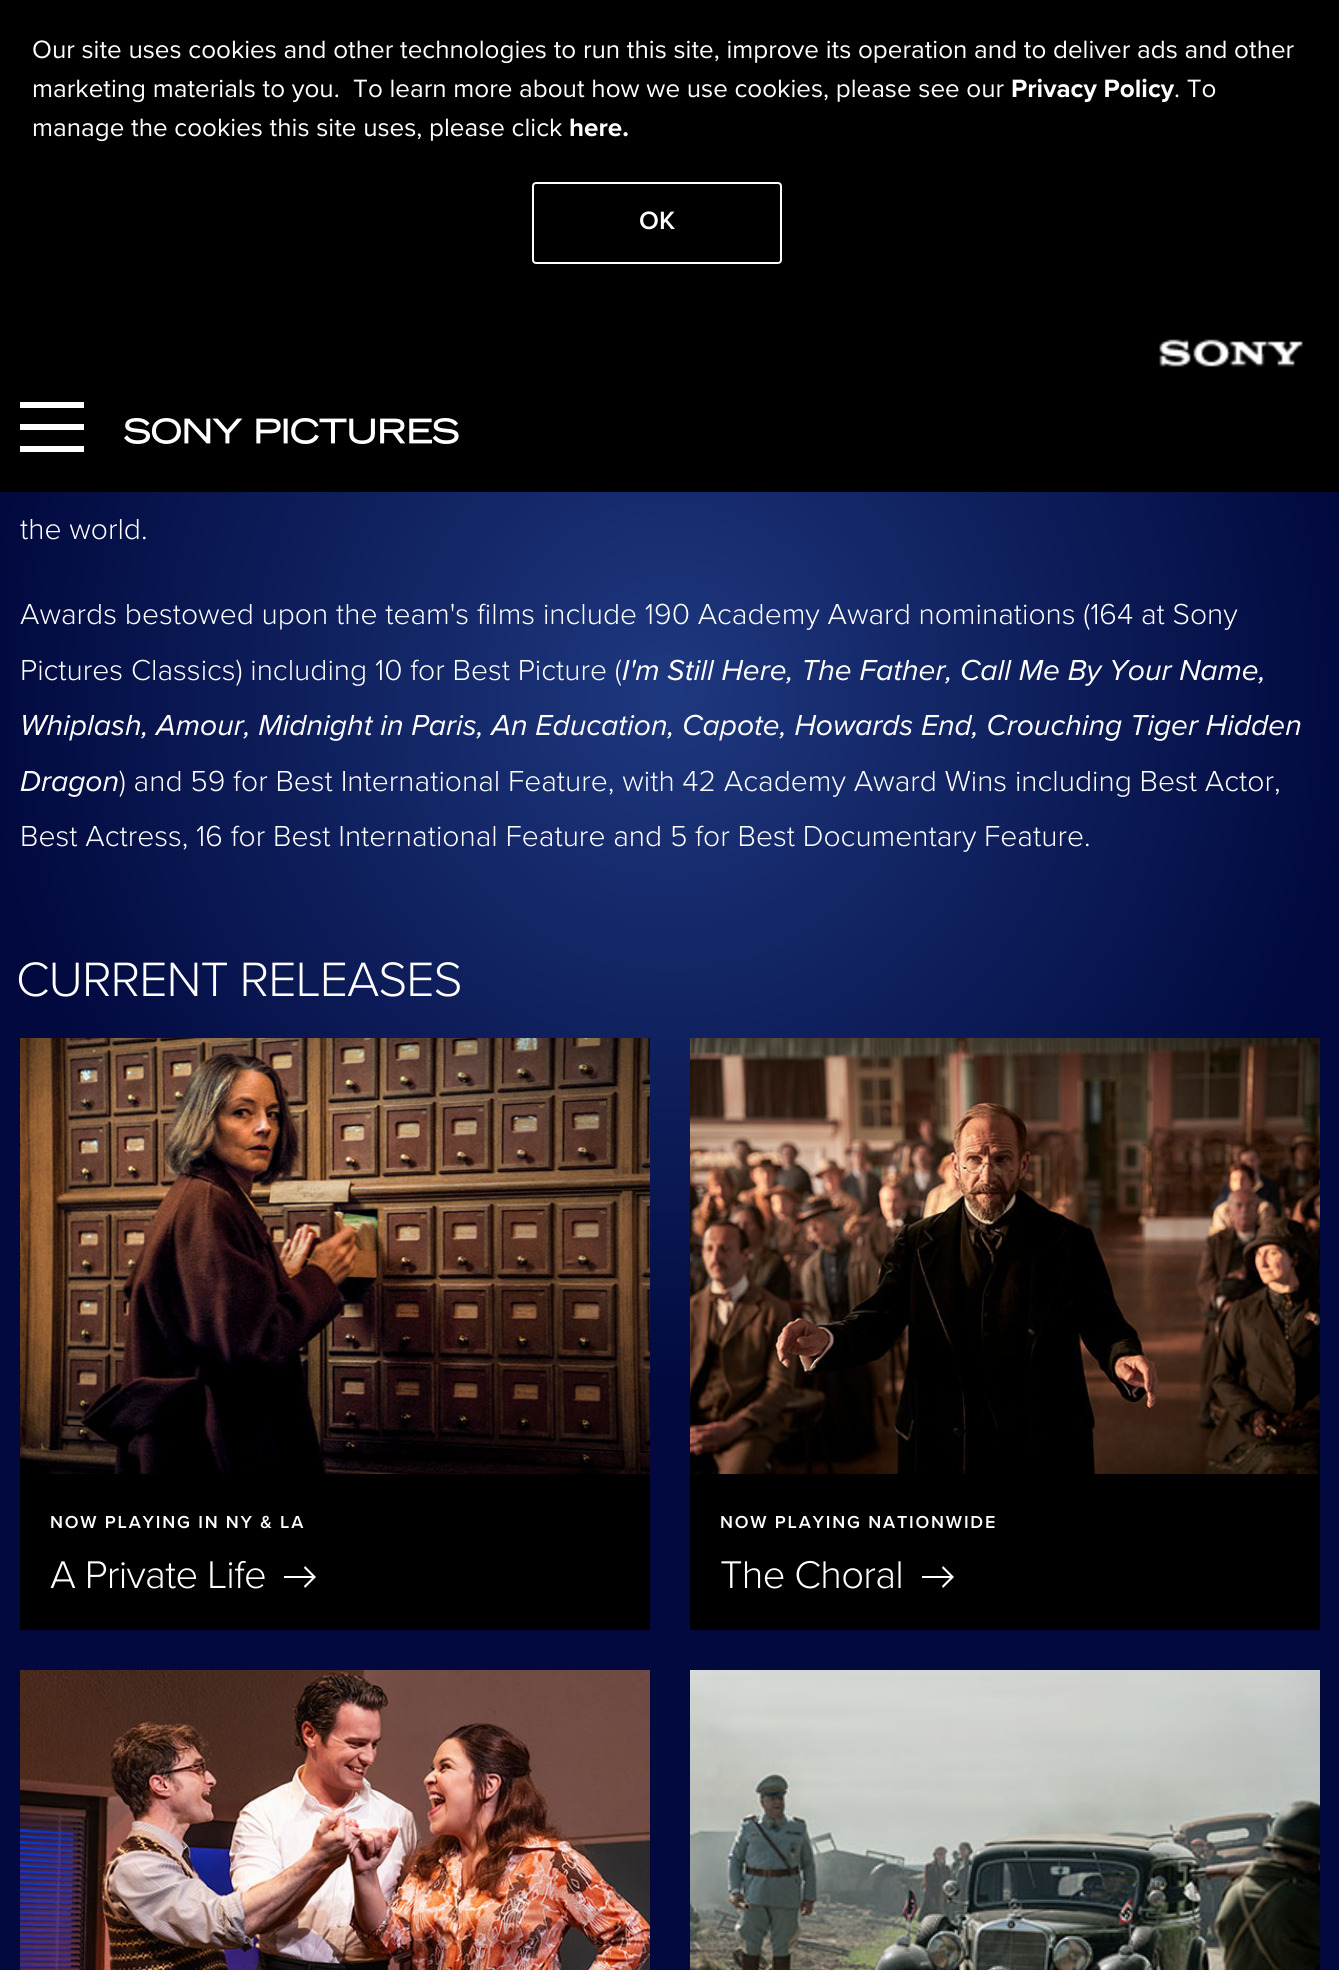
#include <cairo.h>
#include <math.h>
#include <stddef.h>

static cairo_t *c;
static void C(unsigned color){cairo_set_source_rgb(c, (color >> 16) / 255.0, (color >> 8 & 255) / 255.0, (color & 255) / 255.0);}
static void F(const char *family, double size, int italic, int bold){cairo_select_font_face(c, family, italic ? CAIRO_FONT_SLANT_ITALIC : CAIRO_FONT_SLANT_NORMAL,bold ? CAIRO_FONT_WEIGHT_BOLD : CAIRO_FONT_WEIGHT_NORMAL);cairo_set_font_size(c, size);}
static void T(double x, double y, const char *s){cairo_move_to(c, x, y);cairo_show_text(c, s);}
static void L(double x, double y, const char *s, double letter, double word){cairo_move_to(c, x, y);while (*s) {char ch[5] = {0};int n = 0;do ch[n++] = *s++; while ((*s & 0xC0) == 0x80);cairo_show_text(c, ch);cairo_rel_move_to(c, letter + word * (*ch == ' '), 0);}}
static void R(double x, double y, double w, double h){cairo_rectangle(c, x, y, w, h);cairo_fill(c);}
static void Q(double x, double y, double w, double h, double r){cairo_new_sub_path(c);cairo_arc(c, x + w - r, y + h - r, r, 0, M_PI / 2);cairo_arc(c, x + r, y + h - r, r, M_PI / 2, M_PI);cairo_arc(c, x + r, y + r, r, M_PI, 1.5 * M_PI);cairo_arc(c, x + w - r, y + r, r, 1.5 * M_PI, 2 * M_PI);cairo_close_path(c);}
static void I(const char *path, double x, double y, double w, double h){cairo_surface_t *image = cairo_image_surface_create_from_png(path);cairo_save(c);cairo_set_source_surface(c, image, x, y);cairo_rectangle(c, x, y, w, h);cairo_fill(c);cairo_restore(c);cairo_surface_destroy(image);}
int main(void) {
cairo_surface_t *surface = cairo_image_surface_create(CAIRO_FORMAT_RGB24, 1339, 1970);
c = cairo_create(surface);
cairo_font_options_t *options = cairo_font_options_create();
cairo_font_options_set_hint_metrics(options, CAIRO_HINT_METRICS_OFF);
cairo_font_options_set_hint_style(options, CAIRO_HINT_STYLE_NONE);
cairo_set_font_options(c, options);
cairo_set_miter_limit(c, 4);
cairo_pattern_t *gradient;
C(0x01093e);
cairo_paint(c);
C(0x000000);
R(0,0,1339,492);
I("1.png",1159,339,144,28);
C(0xffffff);
R(20,424,64,6);
R(20,402,64,6);
R(20,446,64,6);
I("2.png",124,418,335,26);
F("Proxima Nova",26,0,0);
T(32,58,"Our site uses cookies and other technologies to run this site, improve its operation and to deliver ads and other");
T(32,97,"marketing materials to you.  To learn more about how we use cookies, please see our");
F("Proxima Nova",26,0,1);
T(1011,97,"Privacy Policy");
F("Proxima Nova",26,0,0);
T(1174,97,". To");
T(32,136,"manage the cookies this site uses, please click");
F("Proxima Nova",26,0,1);
T(569,136,"here.");
Q(533,183,248,80,3);
cairo_stroke(c);
F("Proxima Nova SemiBold",26,0,0);
T(639,229,"OK");
gradient = cairo_pattern_create_radial(0,0,0,0,0,1);
cairo_pattern_set_matrix(gradient, &(cairo_matrix_t){1.0 / 948, 0, 0, 1.0 / 976, -1.0 * 670 / 948, -1.0 * 690 / 976});
cairo_pattern_add_color_stop_rgba(gradient,0,0.118,0.22,0.498,1);
cairo_pattern_add_color_stop_rgba(gradient,.73,0.004,0.035,0.243,1);
cairo_set_source(c,gradient);
cairo_pattern_destroy(gradient);
R(3,492,1334,884);
F("Proxima Nova Light",30,0,0);
C(0xffffff);
T(20,539,"the world.");
T(20,624,"Awards bestowed upon the team's films include 190 Academy Award nominations (164 at Sony");
T(20,680,"Pictures Classics) including 10 for Best Picture (");
F("Proxima Nova",30,1,0);
T(622,680,"I'm Still Here, The Father, Call Me By Your Name,");
T(20,735,"Whiplash, Amour, Midnight in Paris, An Education, Capote, Howards End, Crouching Tiger Hidden");
T(20,791,"Dragon");
F("Proxima Nova Light",30,0,0);
T(119,791,") and 59 for Best International Feature, with 42 Academy Award Wins including Best Actor,");
T(20,846,"Best Actress, 16 for Best International Feature and 5 for Best Documentary Feature.");
F("Proxima Nova Light",50,0,0);
L(16,996,"CURRENT RELEASES",-1,0);
C(0x000000);
R(20,1474,630,156);
I("3.png",20,1038,630,436);
F("Proxima Nova SemiBold",18,0,0);
C(0xffffff);
L(50,1528,"NOW PLAYING IN NY & LA",1.8,0);
F("Proxima Nova Light",40,0,0);
L(50,1588,"A Private Life",-.75,0);
cairo_save(c);
cairo_rectangle(c,284,1566,32,22);
cairo_clip(c);
cairo_new_path(c);
cairo_move_to(c,272,1576);
cairo_line_to(c,312,1576);
cairo_line_to(c,304,1568);
cairo_line_to(c,305,1566);
cairo_line_to(c,316,1577);
cairo_line_to(c,305,1588);
cairo_line_to(c,304,1586);
cairo_line_to(c,312,1578);
cairo_line_to(c,272,1578);
cairo_close_path(c);
cairo_fill(c);
cairo_restore(c);
C(0x000000);
R(690,1474,630,156);
I("4.png",690,1038,630,436);
F("Proxima Nova SemiBold",18,0,0);
C(0xffffff);
L(720,1528,"NOW PLAYING NATIONWIDE",1.8,0);
F("Proxima Nova Light",40,0,0);
L(720,1588,"The Choral",-.75,0);
cairo_save(c);
cairo_rectangle(c,922,1566,32,22);
cairo_clip(c);
cairo_new_path(c);
cairo_move_to(c,910,1576);
cairo_line_to(c,950,1576);
cairo_line_to(c,942,1568);
cairo_line_to(c,943,1566);
cairo_line_to(c,954,1577);
cairo_line_to(c,943,1588);
cairo_line_to(c,942,1586);
cairo_line_to(c,950,1578);
cairo_line_to(c,910,1578);
cairo_close_path(c);
cairo_fill(c);
cairo_restore(c);
I("5.png",20,1670,630,300);
I("6.png",690,1670,630,300);
cairo_surface_write_to_png(surface, "o.png");
cairo_font_options_destroy(options);
cairo_destroy(c);
cairo_surface_destroy(surface);
return 0;
}
